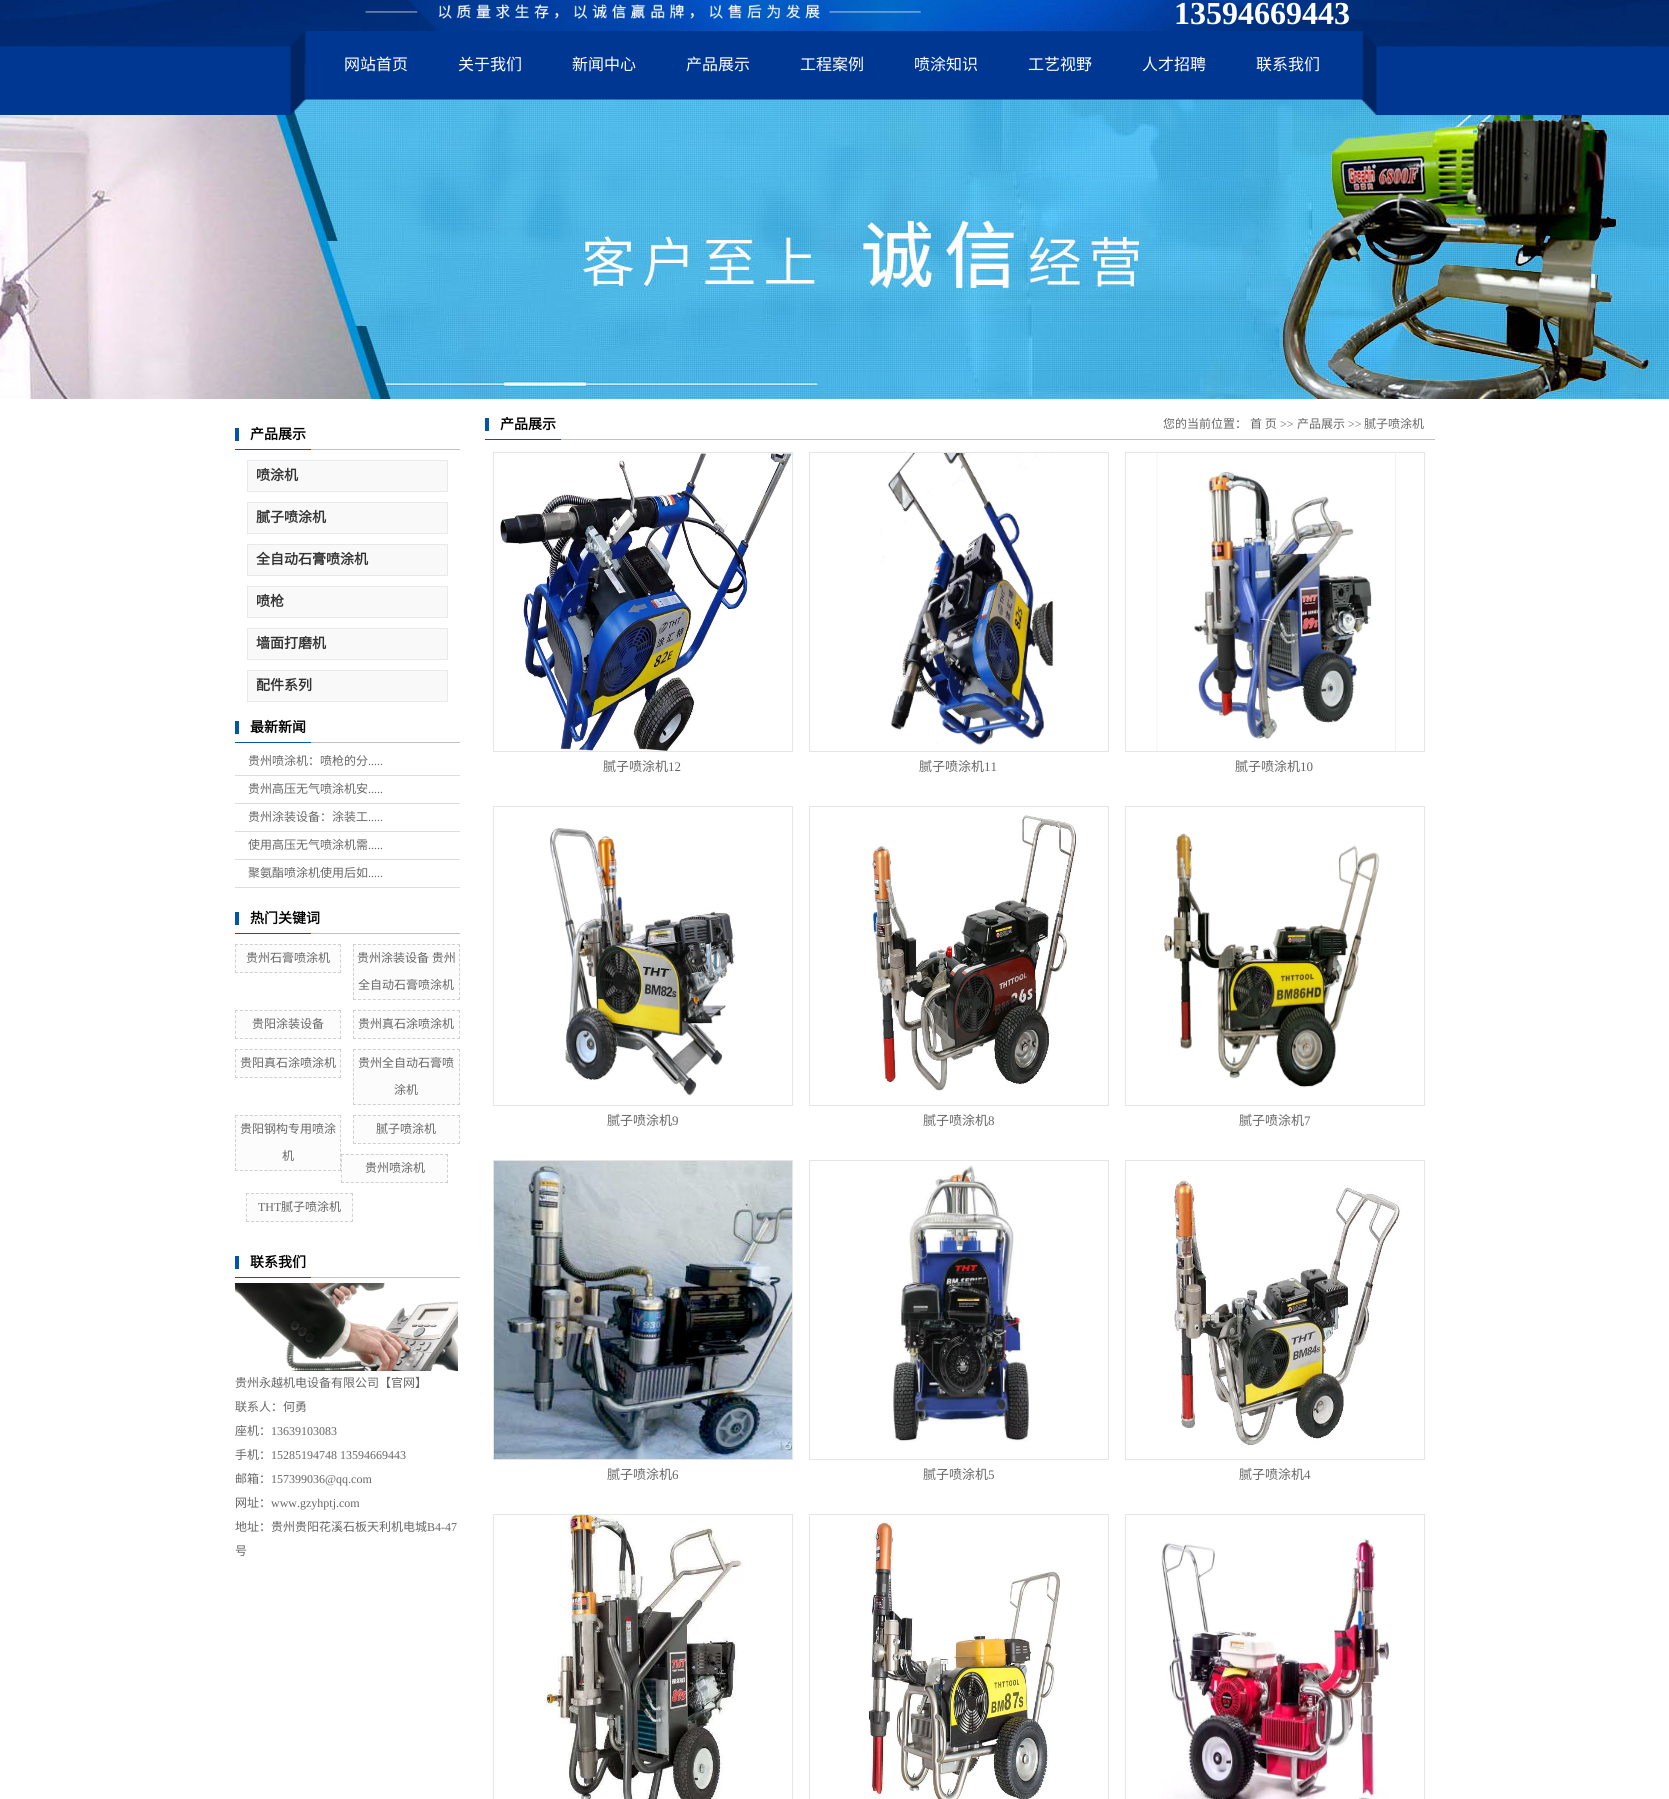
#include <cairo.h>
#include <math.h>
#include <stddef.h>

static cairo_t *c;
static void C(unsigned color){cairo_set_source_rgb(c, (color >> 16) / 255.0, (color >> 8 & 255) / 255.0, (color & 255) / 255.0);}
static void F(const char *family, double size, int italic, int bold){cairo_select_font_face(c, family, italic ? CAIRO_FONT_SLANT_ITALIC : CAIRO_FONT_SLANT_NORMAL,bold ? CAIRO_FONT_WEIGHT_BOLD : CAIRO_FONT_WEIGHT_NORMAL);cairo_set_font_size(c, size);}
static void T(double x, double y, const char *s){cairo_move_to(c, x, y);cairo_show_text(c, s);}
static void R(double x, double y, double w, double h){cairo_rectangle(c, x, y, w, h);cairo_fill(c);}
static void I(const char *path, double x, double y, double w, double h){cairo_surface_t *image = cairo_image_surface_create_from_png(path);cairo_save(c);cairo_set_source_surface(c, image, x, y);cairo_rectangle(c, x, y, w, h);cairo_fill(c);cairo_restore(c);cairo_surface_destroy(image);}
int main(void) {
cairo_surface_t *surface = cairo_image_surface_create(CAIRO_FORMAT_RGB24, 1669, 1799);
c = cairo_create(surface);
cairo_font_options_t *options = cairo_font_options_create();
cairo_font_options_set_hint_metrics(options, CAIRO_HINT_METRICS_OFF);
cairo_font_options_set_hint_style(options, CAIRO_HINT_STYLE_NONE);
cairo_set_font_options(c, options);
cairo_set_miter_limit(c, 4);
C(0xffffff);
cairo_paint(c);
I("1.png",0,0,1669,31);
I("2.png",365,4,556,15);
F("Liberation Serif",32,0,1);
C(0xffffff);
T(1174,24,"13594669443");
I("4.png",0,99,1669,300);
I("3.png",0,31,1669,84);
F("Noto Sans CJK SC",16,0,0);
T(344,70,"网站首页");
T(458,70,"关于我们");
T(572,70,"新闻中心");
T(686,70,"产品展示");
T(800,70,"工程案例");
T(914,70,"喷涂知识");
T(1028,70,"工艺视野");
T(1142,70,"人才招聘");
T(1256,70,"联系我们");
I("5.png",235,428,225,22);
F("Noto Sans CJK SC",14,0,1);
C(0x000000);
T(250,439,"产品展示");
C(0xf9f9f9);
cairo_rectangle(c,247.5,460.5,200,31);
cairo_fill_preserve(c);
C(0xe9e9e9);
cairo_set_line_width(c,1);
cairo_stroke(c);
C(0x333333);
T(256,480,"喷涂机");
C(0xf9f9f9);
cairo_rectangle(c,247.5,502.5,200,31);
cairo_fill_preserve(c);
C(0xe9e9e9);
cairo_stroke(c);
C(0x333333);
T(256,522,"腻子喷涂机");
C(0xf9f9f9);
cairo_rectangle(c,247.5,544.5,200,31);
cairo_fill_preserve(c);
C(0xe9e9e9);
cairo_stroke(c);
C(0x333333);
T(256,564,"全自动石膏喷涂机");
C(0xf9f9f9);
cairo_rectangle(c,247.5,586.5,200,31);
cairo_fill_preserve(c);
C(0xe9e9e9);
cairo_stroke(c);
C(0x333333);
T(256,606,"喷枪");
C(0xf9f9f9);
cairo_rectangle(c,247.5,628.5,200,31);
cairo_fill_preserve(c);
C(0xe9e9e9);
cairo_stroke(c);
C(0x333333);
T(256,648,"墙面打磨机");
C(0xf9f9f9);
cairo_rectangle(c,247.5,670.5,200,31);
cairo_fill_preserve(c);
C(0xe9e9e9);
cairo_stroke(c);
C(0x333333);
T(256,690,"配件系列");
I("5.png",235,721,225,22);
C(0x000000);
T(250,732,"最新新闻");
C(0xdddddd);
R(235,775,225,1);
F("Noto Sans CJK SC",12,0,0);
C(0x666666);
T(248,765,"贵州喷涂机：喷枪的分");
F("Liberation Serif",12,0,0);
T(368,765,".....");
C(0xdddddd);
R(235,803,225,1);
F("Noto Sans CJK SC",12,0,0);
C(0x666666);
T(248,793,"贵州高压无气喷涂机安");
F("Liberation Serif",12,0,0);
T(368,793,".....");
C(0xdddddd);
R(235,831,225,1);
F("Noto Sans CJK SC",12,0,0);
C(0x666666);
T(248,821,"贵州涂装设备：涂装工");
F("Liberation Serif",12,0,0);
T(368,821,".....");
C(0xdddddd);
R(235,859,225,1);
F("Noto Sans CJK SC",12,0,0);
C(0x666666);
T(248,849,"使用高压无气喷涂机需");
F("Liberation Serif",12,0,0);
T(368,849,".....");
C(0xdddddd);
R(235,887,225,1);
F("Noto Sans CJK SC",12,0,0);
C(0x666666);
T(248,877,"聚氨酯喷涂机使用后如");
F("Liberation Serif",12,0,0);
T(368,877,".....");
I("5.png",235,912,225,22);
F("Noto Sans CJK SC",14,0,1);
C(0x000000);
T(250,923,"热门关键词");
C(0xfcfcfc);
R(235,944,106,29);
cairo_new_path(c);
cairo_move_to(c,235,944.5);
cairo_line_to(c,341,944.5);
C(0xd0d0d0);
cairo_set_dash(c,(double[]){3,1.9},2,0);
cairo_stroke(c);
cairo_new_path(c);
cairo_move_to(c,340.5,944);
cairo_line_to(c,340.5,973);
cairo_set_dash(c,(double[]){3,2.2},2,0);
cairo_stroke(c);
cairo_new_path(c);
cairo_move_to(c,235,972.5);
cairo_line_to(c,341,972.5);
cairo_set_dash(c,(double[]){3,1.9},2,0);
cairo_stroke(c);
cairo_new_path(c);
cairo_move_to(c,235.5,944);
cairo_line_to(c,235.5,973);
cairo_set_dash(c,(double[]){3,2.2},2,0);
cairo_stroke(c);
F("Noto Sans CJK SC",12,0,0);
C(0x666666);
T(246,962,"贵州石膏喷涂机");
C(0xfcfcfc);
R(353,944,107,56);
cairo_new_path(c);
cairo_move_to(c,353,944.5);
cairo_line_to(c,460,944.5);
C(0xd0d0d0);
cairo_set_dash(c,(double[]){3,1.95},2,0);
cairo_stroke(c);
cairo_new_path(c);
cairo_move_to(c,459.5,944);
cairo_line_to(c,459.5,1000);
cairo_set_dash(c,(double[]){3,1.82},2,0);
cairo_stroke(c);
cairo_new_path(c);
cairo_move_to(c,353,999.5);
cairo_line_to(c,460,999.5);
cairo_set_dash(c,(double[]){3,1.95},2,0);
cairo_stroke(c);
cairo_new_path(c);
cairo_move_to(c,353.5,944);
cairo_line_to(c,353.5,1000);
cairo_set_dash(c,(double[]){3,1.82},2,0);
cairo_stroke(c);
C(0x666666);
T(357,962,"贵州涂装设备 贵州");
T(358,989,"全自动石膏喷涂机");
C(0xfcfcfc);
R(235,1010,106,29);
cairo_new_path(c);
cairo_move_to(c,235,1010.5);
cairo_line_to(c,341,1010.5);
C(0xd0d0d0);
cairo_set_dash(c,(double[]){3,1.9},2,0);
cairo_stroke(c);
cairo_new_path(c);
cairo_move_to(c,340.5,1010);
cairo_line_to(c,340.5,1039);
cairo_set_dash(c,(double[]){3,2.2},2,0);
cairo_stroke(c);
cairo_new_path(c);
cairo_move_to(c,235,1038.5);
cairo_line_to(c,341,1038.5);
cairo_set_dash(c,(double[]){3,1.9},2,0);
cairo_stroke(c);
cairo_new_path(c);
cairo_move_to(c,235.5,1010);
cairo_line_to(c,235.5,1039);
cairo_set_dash(c,(double[]){3,2.2},2,0);
cairo_stroke(c);
C(0x666666);
T(252,1028,"贵阳涂装设备");
C(0xfcfcfc);
R(353,1010,107,29);
cairo_new_path(c);
cairo_move_to(c,353,1010.5);
cairo_line_to(c,460,1010.5);
C(0xd0d0d0);
cairo_set_dash(c,(double[]){3,1.95},2,0);
cairo_stroke(c);
cairo_new_path(c);
cairo_move_to(c,459.5,1010);
cairo_line_to(c,459.5,1039);
cairo_set_dash(c,(double[]){3,2.2},2,0);
cairo_stroke(c);
cairo_new_path(c);
cairo_move_to(c,353,1038.5);
cairo_line_to(c,460,1038.5);
cairo_set_dash(c,(double[]){3,1.95},2,0);
cairo_stroke(c);
cairo_new_path(c);
cairo_move_to(c,353.5,1010);
cairo_line_to(c,353.5,1039);
cairo_set_dash(c,(double[]){3,2.2},2,0);
cairo_stroke(c);
C(0x666666);
T(358,1028,"贵州真石涂喷涂机");
C(0xfcfcfc);
R(235,1049,106,29);
cairo_new_path(c);
cairo_move_to(c,235,1049.5);
cairo_line_to(c,341,1049.5);
C(0xd0d0d0);
cairo_set_dash(c,(double[]){3,1.9},2,0);
cairo_stroke(c);
cairo_new_path(c);
cairo_move_to(c,340.5,1049);
cairo_line_to(c,340.5,1078);
cairo_set_dash(c,(double[]){3,2.2},2,0);
cairo_stroke(c);
cairo_new_path(c);
cairo_move_to(c,235,1077.5);
cairo_line_to(c,341,1077.5);
cairo_set_dash(c,(double[]){3,1.9},2,0);
cairo_stroke(c);
cairo_new_path(c);
cairo_move_to(c,235.5,1049);
cairo_line_to(c,235.5,1078);
cairo_set_dash(c,(double[]){3,2.2},2,0);
cairo_stroke(c);
C(0x666666);
T(240,1067,"贵阳真石涂喷涂机");
C(0xfcfcfc);
R(353,1049,107,56);
cairo_new_path(c);
cairo_move_to(c,353,1049.5);
cairo_line_to(c,460,1049.5);
C(0xd0d0d0);
cairo_set_dash(c,(double[]){3,1.95},2,0);
cairo_stroke(c);
cairo_new_path(c);
cairo_move_to(c,459.5,1049);
cairo_line_to(c,459.5,1105);
cairo_set_dash(c,(double[]){3,1.82},2,0);
cairo_stroke(c);
cairo_new_path(c);
cairo_move_to(c,353,1104.5);
cairo_line_to(c,460,1104.5);
cairo_set_dash(c,(double[]){3,1.95},2,0);
cairo_stroke(c);
cairo_new_path(c);
cairo_move_to(c,353.5,1049);
cairo_line_to(c,353.5,1105);
cairo_set_dash(c,(double[]){3,1.82},2,0);
cairo_stroke(c);
C(0x666666);
T(358,1067,"贵州全自动石膏喷");
T(394,1094,"涂机");
C(0xfcfcfc);
R(235,1115,106,56);
cairo_new_path(c);
cairo_move_to(c,235,1115.5);
cairo_line_to(c,341,1115.5);
C(0xd0d0d0);
cairo_set_dash(c,(double[]){3,1.9},2,0);
cairo_stroke(c);
cairo_new_path(c);
cairo_move_to(c,340.5,1115);
cairo_line_to(c,340.5,1171);
cairo_set_dash(c,(double[]){3,1.82},2,0);
cairo_stroke(c);
cairo_new_path(c);
cairo_move_to(c,235,1170.5);
cairo_line_to(c,341,1170.5);
cairo_set_dash(c,(double[]){3,1.9},2,0);
cairo_stroke(c);
cairo_new_path(c);
cairo_move_to(c,235.5,1115);
cairo_line_to(c,235.5,1171);
cairo_set_dash(c,(double[]){3,1.82},2,0);
cairo_stroke(c);
C(0x666666);
T(240,1133,"贵阳钢构专用喷涂");
T(282,1160,"机");
C(0xfcfcfc);
R(353,1115,107,29);
cairo_new_path(c);
cairo_move_to(c,353,1115.5);
cairo_line_to(c,460,1115.5);
C(0xd0d0d0);
cairo_set_dash(c,(double[]){3,1.95},2,0);
cairo_stroke(c);
cairo_new_path(c);
cairo_move_to(c,459.5,1115);
cairo_line_to(c,459.5,1144);
cairo_set_dash(c,(double[]){3,2.2},2,0);
cairo_stroke(c);
cairo_new_path(c);
cairo_move_to(c,353,1143.5);
cairo_line_to(c,460,1143.5);
cairo_set_dash(c,(double[]){3,1.95},2,0);
cairo_stroke(c);
cairo_new_path(c);
cairo_move_to(c,353.5,1115);
cairo_line_to(c,353.5,1144);
cairo_set_dash(c,(double[]){3,2.2},2,0);
cairo_stroke(c);
C(0x666666);
T(376,1133,"腻子喷涂机");
C(0xfcfcfc);
R(341,1154,107,29);
cairo_new_path(c);
cairo_move_to(c,341,1154.5);
cairo_line_to(c,448,1154.5);
C(0xd0d0d0);
cairo_set_dash(c,(double[]){3,1.95},2,0);
cairo_stroke(c);
cairo_new_path(c);
cairo_move_to(c,447.5,1154);
cairo_line_to(c,447.5,1183);
cairo_set_dash(c,(double[]){3,2.2},2,0);
cairo_stroke(c);
cairo_new_path(c);
cairo_move_to(c,341,1182.5);
cairo_line_to(c,448,1182.5);
cairo_set_dash(c,(double[]){3,1.95},2,0);
cairo_stroke(c);
cairo_new_path(c);
cairo_move_to(c,341.5,1154);
cairo_line_to(c,341.5,1183);
cairo_set_dash(c,(double[]){3,2.2},2,0);
cairo_stroke(c);
C(0x666666);
T(365,1172,"贵州喷涂机");
C(0xfcfcfc);
R(246,1193,107,29);
cairo_new_path(c);
cairo_move_to(c,246,1193.5);
cairo_line_to(c,353,1193.5);
C(0xd0d0d0);
cairo_set_dash(c,(double[]){3,1.95},2,0);
cairo_stroke(c);
cairo_new_path(c);
cairo_move_to(c,352.5,1193);
cairo_line_to(c,352.5,1222);
cairo_set_dash(c,(double[]){3,2.2},2,0);
cairo_stroke(c);
cairo_new_path(c);
cairo_move_to(c,246,1221.5);
cairo_line_to(c,353,1221.5);
cairo_set_dash(c,(double[]){3,1.95},2,0);
cairo_stroke(c);
cairo_new_path(c);
cairo_move_to(c,246.5,1193);
cairo_line_to(c,246.5,1222);
cairo_set_dash(c,(double[]){3,2.2},2,0);
cairo_stroke(c);
F("Liberation Serif",12,0,0);
C(0x666666);
T(258,1211,"THT");
F("Noto Sans CJK SC",12,0,0);
T(281,1211,"腻子喷涂机");
I("5.png",235,1256,225,22);
F("Noto Sans CJK SC",14,0,1);
C(0x000000);
T(250,1267,"联系我们");
I("6.png",235,1283,223,88);
F("Noto Sans CJK SC",12,0,0);
C(0x666666);
T(235,1387,"贵州永越机电设备有限公司【官网】");
T(235,1411,"联系人：何勇");
T(235,1435,"座机：");
F("Liberation Serif",12,0,0);
T(271,1435,"13639103083");
F("Noto Sans CJK SC",12,0,0);
T(235,1459,"手机：");
F("Liberation Serif",12,0,0);
T(271,1459,"15285194748 13594669443");
F("Noto Sans CJK SC",12,0,0);
T(235,1483,"邮箱：");
F("Liberation Serif",12,0,0);
T(271,1483,"157399036@qq.com");
F("Noto Sans CJK SC",12,0,0);
T(235,1507,"网址：");
F("Liberation Serif",12,0,0);
T(271,1507,"www.gzyhptj.com");
F("Noto Sans CJK SC",12,0,0);
T(235,1531,"地址：贵州贵阳花溪石板天利机电城");
F("Liberation Serif",12,0,0);
T(427,1531,"B4-47");
F("Noto Sans CJK SC",12,0,0);
T(235,1555,"号");
I("7.png",485,418,950,22);
F("Noto Sans CJK SC",14,0,1);
C(0x000000);
T(500,429,"产品展示");
F("Noto Sans CJK SC",12,0,0);
C(0x666666);
T(1163,428,"您的当前位置：");
T(1250,428,"首 页");
F("Liberation Serif",12,0,0);
T(1280,428,">>");
F("Noto Sans CJK SC",12,0,0);
T(1297,428,"产品展示");
F("Liberation Serif",12,0,0);
T(1348,428,">>");
F("Noto Sans CJK SC",12,0,0);
T(1364,428,"腻子喷涂机");
cairo_rectangle(c,493.5,452.5,299,299);
C(0xe5e5e5);
cairo_set_dash(c,NULL,0,0);
cairo_stroke(c);
I("8.png",500,453,292,298);
F("Noto Sans CJK SC",13,0,0);
C(0x666666);
T(603,771,"腻子喷涂机");
F("Liberation Serif",13,0,0);
T(668,771,"12");
cairo_rectangle(c,809.5,452.5,299,299);
C(0xe5e5e5);
cairo_stroke(c);
I("9.png",881,453,173,293);
F("Noto Sans CJK SC",13,0,0);
C(0x666666);
T(919,771,"腻子喷涂机");
F("Liberation Serif",13,0,0);
T(984,771,"11");
cairo_rectangle(c,1125.5,452.5,299,299);
C(0xe5e5e5);
cairo_stroke(c);
I("10.png",1156,453,240,298);
F("Noto Sans CJK SC",13,0,0);
C(0x666666);
T(1235,771,"腻子喷涂机");
F("Liberation Serif",13,0,0);
T(1300,771,"10");
cairo_rectangle(c,493.5,806.5,299,299);
C(0xe5e5e5);
cairo_stroke(c);
I("11.png",550,828,185,268);
F("Noto Sans CJK SC",13,0,0);
C(0x666666);
T(607,1125,"腻子喷涂机");
F("Liberation Serif",13,0,0);
T(672,1125,"9");
cairo_rectangle(c,809.5,806.5,299,299);
C(0xe5e5e5);
cairo_stroke(c);
I("12.png",872,813,206,278);
F("Noto Sans CJK SC",13,0,0);
C(0x666666);
T(923,1125,"腻子喷涂机");
F("Liberation Serif",13,0,0);
T(988,1125,"8");
cairo_rectangle(c,1125.5,806.5,299,299);
C(0xe5e5e5);
cairo_stroke(c);
I("13.png",1164,833,216,255);
F("Noto Sans CJK SC",13,0,0);
C(0x666666);
T(1239,1125,"腻子喷涂机");
F("Liberation Serif",13,0,0);
T(1304,1125,"7");
cairo_rectangle(c,493.5,1160.5,299,299);
C(0xe5e5e5);
cairo_stroke(c);
I("14.png",494,1161,298,298);
F("Noto Sans CJK SC",13,0,0);
C(0x666666);
T(607,1479,"腻子喷涂机");
F("Liberation Serif",13,0,0);
T(672,1479,"6");
cairo_rectangle(c,809.5,1160.5,299,299);
C(0xe5e5e5);
cairo_stroke(c);
I("15.png",893,1165,137,277);
F("Noto Sans CJK SC",13,0,0);
C(0x666666);
T(923,1479,"腻子喷涂机");
F("Liberation Serif",13,0,0);
T(988,1479,"5");
cairo_rectangle(c,1125.5,1160.5,299,299);
C(0xe5e5e5);
cairo_stroke(c);
I("16.png",1173,1180,229,265);
F("Noto Sans CJK SC",13,0,0);
C(0x666666);
T(1239,1479,"腻子喷涂机");
F("Liberation Serif",13,0,0);
T(1304,1479,"4");
cairo_rectangle(c,493.5,1514.5,299,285);
C(0xe5e5e5);
cairo_stroke(c);
I("17.png",544,1515,199,284);
cairo_rectangle(c,809.5,1514.5,299,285);
cairo_stroke(c);
I("18.png",868,1520,193,279);
cairo_rectangle(c,1125.5,1514.5,299,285);
cairo_stroke(c);
I("19.png",1161,1538,228,261);
cairo_surface_write_to_png(surface, "o.png");
cairo_font_options_destroy(options);
cairo_destroy(c);
cairo_surface_destroy(surface);
return 0;
}
